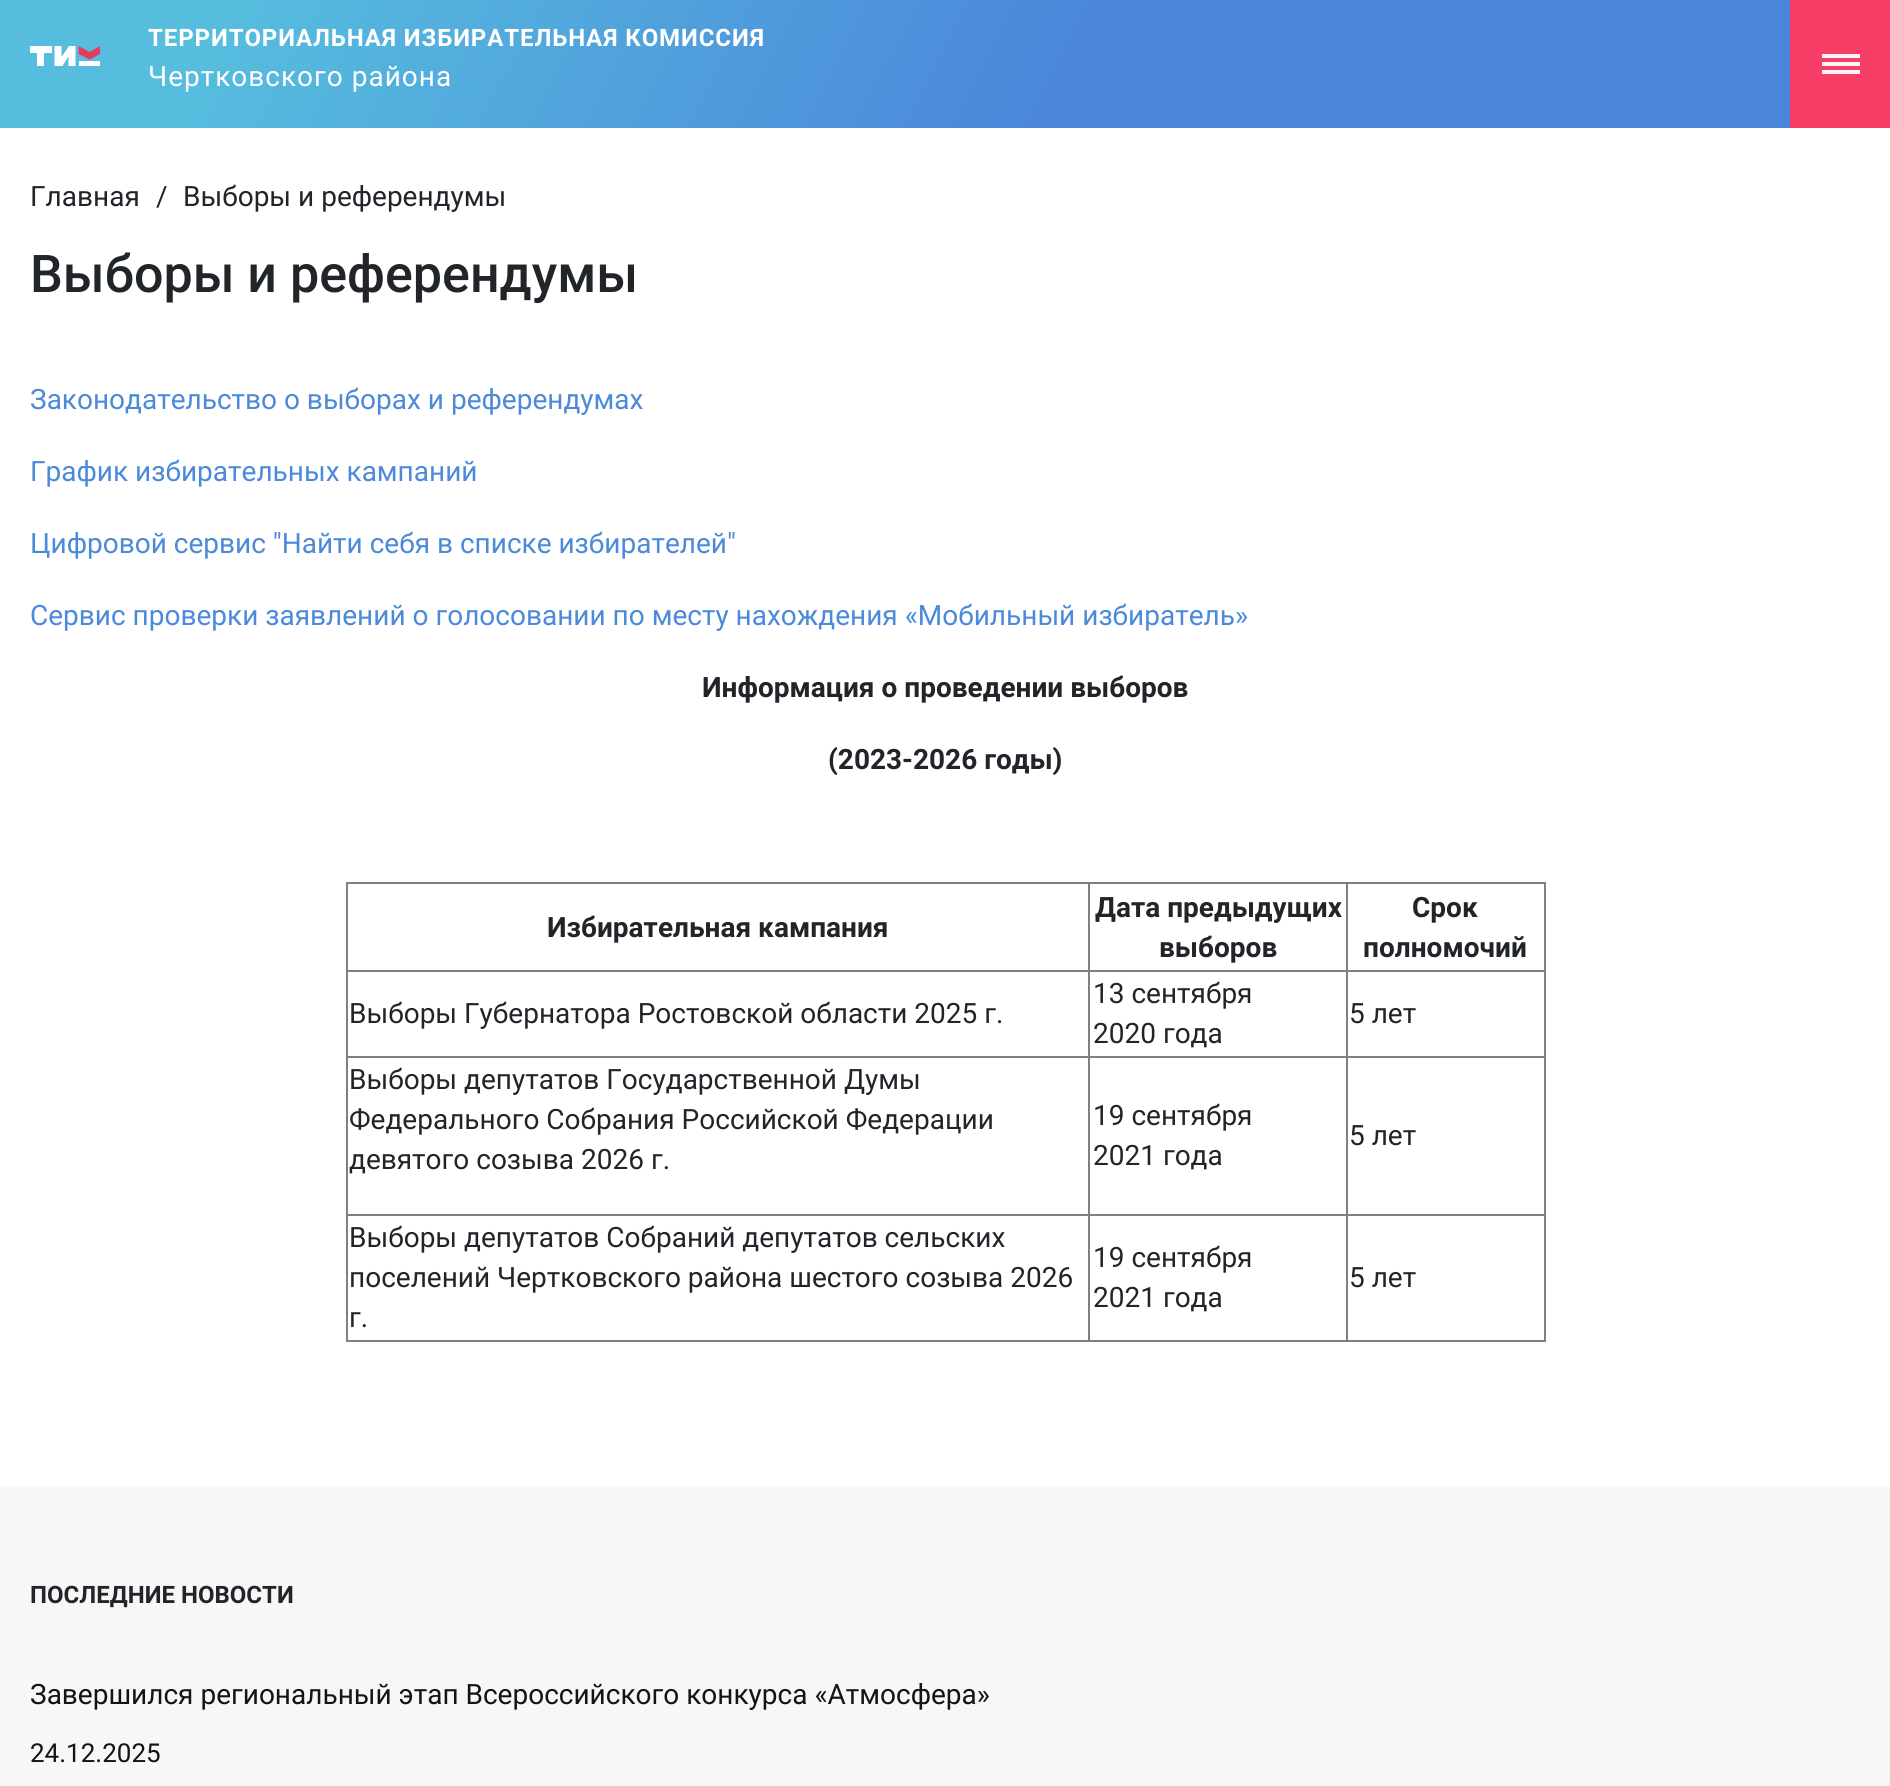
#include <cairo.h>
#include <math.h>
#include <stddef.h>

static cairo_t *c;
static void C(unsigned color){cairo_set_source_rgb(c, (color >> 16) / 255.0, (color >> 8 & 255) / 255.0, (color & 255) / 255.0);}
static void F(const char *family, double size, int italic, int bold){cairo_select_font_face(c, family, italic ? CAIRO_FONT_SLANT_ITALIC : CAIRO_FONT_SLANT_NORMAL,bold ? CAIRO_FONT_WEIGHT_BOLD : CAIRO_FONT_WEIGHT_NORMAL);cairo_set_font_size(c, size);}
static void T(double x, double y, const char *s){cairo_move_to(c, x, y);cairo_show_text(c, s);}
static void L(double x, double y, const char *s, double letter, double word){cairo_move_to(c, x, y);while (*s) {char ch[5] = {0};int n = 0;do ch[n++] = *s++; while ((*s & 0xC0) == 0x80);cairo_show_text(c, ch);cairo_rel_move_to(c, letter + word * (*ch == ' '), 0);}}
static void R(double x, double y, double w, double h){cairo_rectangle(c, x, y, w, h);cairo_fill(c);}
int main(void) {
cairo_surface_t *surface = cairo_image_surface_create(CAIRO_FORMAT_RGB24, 1890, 1786);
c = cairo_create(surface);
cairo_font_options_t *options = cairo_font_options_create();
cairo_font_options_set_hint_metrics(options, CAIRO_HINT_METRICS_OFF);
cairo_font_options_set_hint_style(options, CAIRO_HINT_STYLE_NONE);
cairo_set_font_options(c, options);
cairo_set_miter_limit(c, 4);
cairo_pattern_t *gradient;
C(0xffffff);
cairo_paint(c);
gradient = cairo_pattern_create_linear(169,-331,1721,459);
cairo_pattern_add_color_stop_rgba(gradient,.12,0.337,0.741,0.871,1);
cairo_pattern_add_color_stop_rgba(gradient,.57,0.294,0.522,0.855,1);
cairo_set_source(c,gradient);
cairo_pattern_destroy(gradient);
R(0,0,1790,128);
cairo_save(c);
cairo_rectangle(c,30,46,70,20);
cairo_clip(c);
C(0xffffff);
cairo_set_fill_rule(c,CAIRO_FILL_RULE_EVEN_ODD);
cairo_new_path(c);
cairo_move_to(c,54.5,46);
cairo_line_to(c,61.5,46);
cairo_line_to(c,61.5,57);
cairo_line_to(c,69,46);
cairo_line_to(c,75.5,46);
cairo_line_to(c,75.5,67.5);
cairo_line_to(c,68.5,67.5);
cairo_line_to(c,68.5,56.5);
cairo_line_to(c,61.5,67.5);
cairo_line_to(c,54.5,67.5);
cairo_close_path(c);
cairo_fill(c);
cairo_restore(c);
C(0xffffff);
R(79,61,21,5);
C(0xe73a5c);
cairo_set_fill_rule(c,CAIRO_FILL_RULE_EVEN_ODD);
cairo_new_path(c);
cairo_move_to(c,100,54);
cairo_line_to(c,100,46);
cairo_line_to(c,89.5,52);
cairo_line_to(c,78.5,46);
cairo_line_to(c,78.5,54);
cairo_line_to(c,89.5,59.5);
cairo_close_path(c);
cairo_fill(c);
C(0xffffff);
R(37,46,7,20);
R(30,46,22,7);
F("Roboto",24,0,1);
L(148,46,"ТЕРРИТОРИАЛЬНАЯ ИЗБИРАТЕЛЬНАЯ КОМИССИЯ",.9,0);
F("Roboto",28,0,0);
L(148,86,"Чертковского района",1,0);
C(0xf83d66);
R(1790,0,100,128);
C(0xf6f6f6);
cairo_new_path(c);
cairo_move_to(c,1822,54);
cairo_line_to(c,1860,54);
cairo_line_to(c,1860,58);
cairo_line_to(c,1822,58);
cairo_close_path(c);
cairo_move_to(c,1822,62);
cairo_line_to(c,1860,62);
cairo_line_to(c,1860,66);
cairo_line_to(c,1822,66);
cairo_close_path(c);
cairo_move_to(c,1822,70);
cairo_line_to(c,1860,70);
cairo_line_to(c,1860,74);
cairo_line_to(c,1822,74);
cairo_close_path(c);
cairo_fill(c);
C(0x212529);
T(30,206,"Главная");
T(156,206,"/");
T(183,206,"Выборы и референдумы");
F("Roboto Medium",52,0,0);
T(30,292,"Выборы и референдумы");
F("Roboto",28,0,0);
C(0x4b89da);
T(30,409,"Законодательство о выборах и референдумах");
T(30,481,"График избирательных кампаний");
T(30,553,"Цифровой сервис \"Найти себя в списке избирателей\"");
T(30,625,"Сервис проверки заявлений о голосовании по месту нахождения «Мобильный избиратель»");
F("Roboto",28,0,1);
C(0x212529);
T(702,697,"Информация о проведении выборов");
T(828,769,"(2023-2026 годы)");
C(0x808080);
R(346,882,1200,2);
R(1544,882,2,460);
R(346,1340,1200,2);
R(346,882,2,460);
C(0x212529);
T(547,937,"Избирательная кампания");
C(0x808080);
R(1346,970,200,2);
R(1346,1056,200,2);
R(1346,1214,200,2);
R(1346,1214,2,128);
R(1088,1214,260,2);
R(1346,1056,2,160);
R(1088,1056,260,2);
R(1346,970,2,88);
R(1088,970,260,2);
R(1088,1214,2,128);
R(346,1214,744,2);
R(1088,1056,2,160);
R(346,1056,744,2);
R(1088,970,2,88);
R(346,970,744,2);
R(1088,882,2,90);
C(0x212529);
T(1095,917,"Дата предыдущих");
T(1159,957,"выборов");
C(0x808080);
R(1346,882,2,90);
C(0x212529);
T(1412,917,"Срок");
T(1363,957,"полномочий");
F("Roboto",28,0,0);
T(349,1023,"Выборы Губернатора Ростовской области 2025 г.");
T(1093,1003,"13 сентября");
T(1093,1043,"2020 года");
T(1349,1023,"5 лет");
T(349,1089,"Выборы депутатов Государственной Думы");
T(349,1129,"Федерального Собрания Российской Федерации");
T(349,1169,"девятого созыва 2026 г.");
T(1093,1125,"19 сентября");
T(1093,1165,"2021 года");
T(1349,1145,"5 лет");
T(349,1247,"Выборы депутатов Собраний депутатов сельских");
T(349,1287,"поселений Чертковского района шестого созыва 2026");
T(349,1327,"г.");
T(1093,1267,"19 сентября");
T(1093,1307,"2021 года");
T(1349,1287,"5 лет");
C(0xf7f7f7);
R(0,1486,1890,300);
F("Roboto",24,0,1);
C(0x212529);
T(30,1603,"ПОСЛЕДНИЕ НОВОСТИ");
F("Roboto",28,0,0);
C(0x131415);
T(30,1704,"Завершился региональный этап Всероссийского конкурса «Атмосфера»");
F("Roboto",26,0,0);
T(30,1762,"24.12.2025");
cairo_surface_write_to_png(surface, "o.png");
cairo_font_options_destroy(options);
cairo_destroy(c);
cairo_surface_destroy(surface);
return 0;
}
